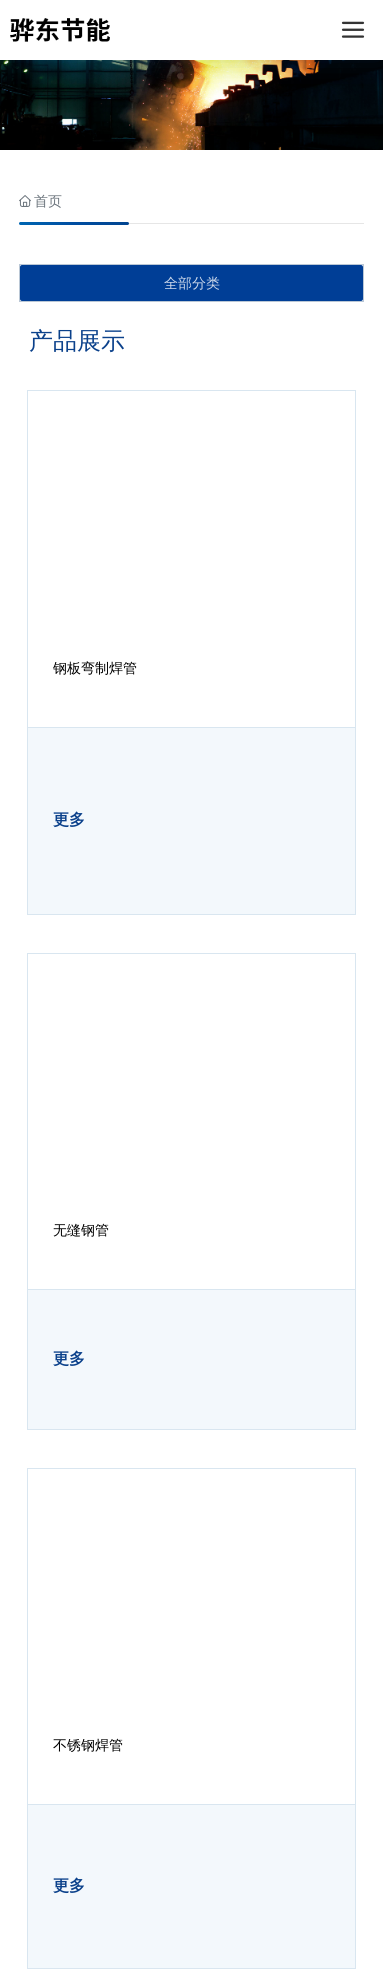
#include <cairo.h>
#include <math.h>
#include <stddef.h>

static cairo_t *c;
static void C(unsigned color){cairo_set_source_rgb(c, (color >> 16) / 255.0, (color >> 8 & 255) / 255.0, (color & 255) / 255.0);}
static void F(const char *family, double size, int italic, int bold){cairo_select_font_face(c, family, italic ? CAIRO_FONT_SLANT_ITALIC : CAIRO_FONT_SLANT_NORMAL,bold ? CAIRO_FONT_WEIGHT_BOLD : CAIRO_FONT_WEIGHT_NORMAL);cairo_set_font_size(c, size);}
static void T(double x, double y, const char *s){cairo_move_to(c, x, y);cairo_show_text(c, s);}
static void R(double x, double y, double w, double h){cairo_rectangle(c, x, y, w, h);cairo_fill(c);}
static void Q(double x, double y, double w, double h, double r){cairo_new_sub_path(c);cairo_arc(c, x + w - r, y + h - r, r, 0, M_PI / 2);cairo_arc(c, x + r, y + h - r, r, M_PI / 2, M_PI);cairo_arc(c, x + r, y + r, r, M_PI, 1.5 * M_PI);cairo_arc(c, x + w - r, y + r, r, 1.5 * M_PI, 2 * M_PI);cairo_close_path(c);}
static void S(double x, double y, double w, double h, double r, double blur, double alpha){cairo_push_group_with_content(c, CAIRO_CONTENT_ALPHA);cairo_set_operator(c, CAIRO_OPERATOR_SOURCE);for (int i = 15; i >= -15 && fmin(w, h) + blur * i / 3 > 0; i -= 2) {double e = blur * i / 6;cairo_set_source_rgba(c, 0, 0, 0, alpha * erfc((i - 1) / 8.5) / 2);Q(x - e, y - e, w + 2 * e, h + 2 * e, fmax(0, fmin(r + e + blur * .6, fmin(w, h) / 2 + e)));cairo_fill(c);}cairo_pattern_t *soft = cairo_pop_group(c);cairo_mask(c, soft);cairo_pattern_destroy(soft);}
static void I(const char *path, double x, double y, double w, double h){cairo_surface_t *image = cairo_image_surface_create_from_png(path);cairo_save(c);cairo_set_source_surface(c, image, x, y);cairo_rectangle(c, x, y, w, h);cairo_fill(c);cairo_restore(c);cairo_surface_destroy(image);}
int main(void) {
cairo_surface_t *surface = cairo_image_surface_create(CAIRO_FORMAT_RGB24, 383, 1979);
c = cairo_create(surface);
cairo_font_options_t *options = cairo_font_options_create();
cairo_font_options_set_hint_metrics(options, CAIRO_HINT_METRICS_OFF);
cairo_font_options_set_hint_style(options, CAIRO_HINT_STYLE_NONE);
cairo_set_font_options(c, options);
cairo_set_miter_limit(c, 4);
cairo_pattern_t *gradient;
C(0xffffff);
cairo_paint(c);
I("3.png",0,60,383,90);
C(0x004ea2);
S(0,0,383,60,0,16,.2);
C(0xffffff);
R(0,0,383,60);
I("1.png",10,18,100,24);
I("2.png",341,21,24,17);
I("4.png",19,195,12,12);
F("WenQuanYi Zen Hei Medium",14,0,0);
C(0x6c757d);
T(34,206,"首页");
C(0xe6e6e6);
R(19,223,345,1);
gradient = cairo_pattern_create_linear(129,224,19,224);
cairo_pattern_add_color_stop_rgba(gradient,0,0.004,0.271,0.565,1);
cairo_pattern_add_color_stop_rgba(gradient,.5,0,0.302,0.631,1);
cairo_pattern_add_color_stop_rgba(gradient,1,0,0.4,0.698,1);
cairo_set_source(c,gradient);
cairo_pattern_destroy(gradient);
Q(19,222,110,3,1.5);
cairo_fill(c);
cairo_rectangle(c,19.5,264.5,344,37);
C(0xbac7d5);
cairo_set_line_width(c,1);
cairo_stroke(c);
C(0x003e96);
Q(20,265,343,36,2);
cairo_fill(c);
C(0xccd8ea);
T(164,288,"全部分类");
F("WenQuanYi Zen Hei Medium",24,0,0);
C(0x0b418b);
T(29,349,"产品展示");
cairo_rectangle(c,27.5,390.5,328,524);
C(0xd9e6f0);
cairo_stroke(c);
F("WenQuanYi Zen Hei Medium",14,0,0);
C(0x000000);
T(53,673,"钢板弯制焊管");
C(0xf3f8fc);
R(28,728,327,186);
C(0xd9e6f0);
R(28,727,327,1);
F("WenQuanYi Zen Hei",16,0,1);
C(0x0b418b);
T(53,825,"更多");
cairo_rectangle(c,27.5,953.5,328,476);
C(0xd9e6f0);
cairo_stroke(c);
F("WenQuanYi Zen Hei Medium",14,0,0);
C(0x000000);
T(53,1235,"无缝钢管");
C(0xf3f8fc);
R(28,1290,327,139);
C(0xd9e6f0);
R(28,1289,327,1);
F("WenQuanYi Zen Hei",16,0,1);
C(0x0b418b);
T(53,1364,"更多");
cairo_rectangle(c,27.5,1468.5,328,500);
C(0xd9e6f0);
cairo_stroke(c);
F("WenQuanYi Zen Hei Medium",14,0,0);
C(0x000000);
T(53,1750,"不锈钢焊管");
C(0xf3f8fc);
R(28,1805,327,163);
C(0xd9e6f0);
R(28,1804,327,1);
F("WenQuanYi Zen Hei",16,0,1);
C(0x0b418b);
T(53,1891,"更多");
cairo_surface_write_to_png(surface, "o.png");
cairo_font_options_destroy(options);
cairo_destroy(c);
cairo_surface_destroy(surface);
return 0;
}
